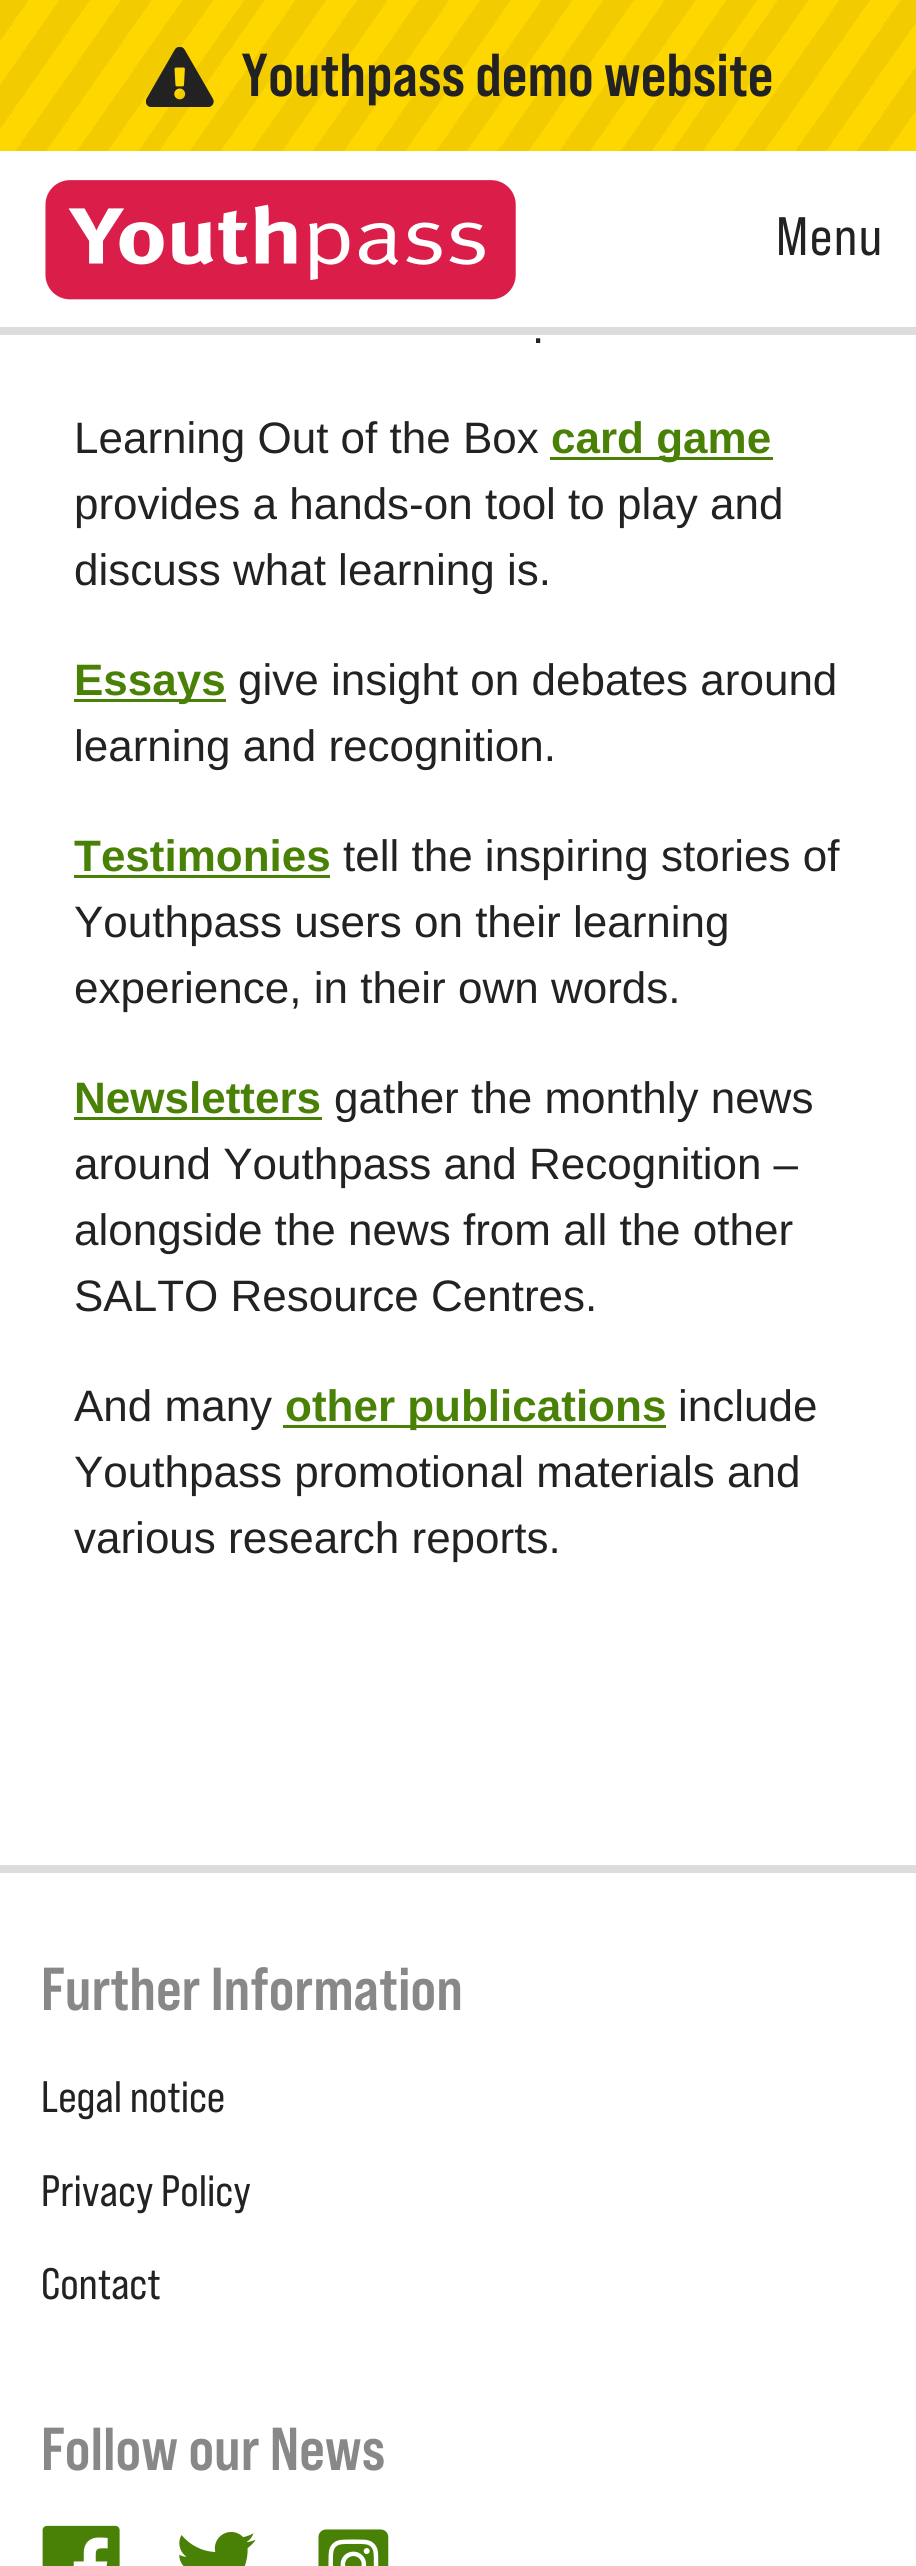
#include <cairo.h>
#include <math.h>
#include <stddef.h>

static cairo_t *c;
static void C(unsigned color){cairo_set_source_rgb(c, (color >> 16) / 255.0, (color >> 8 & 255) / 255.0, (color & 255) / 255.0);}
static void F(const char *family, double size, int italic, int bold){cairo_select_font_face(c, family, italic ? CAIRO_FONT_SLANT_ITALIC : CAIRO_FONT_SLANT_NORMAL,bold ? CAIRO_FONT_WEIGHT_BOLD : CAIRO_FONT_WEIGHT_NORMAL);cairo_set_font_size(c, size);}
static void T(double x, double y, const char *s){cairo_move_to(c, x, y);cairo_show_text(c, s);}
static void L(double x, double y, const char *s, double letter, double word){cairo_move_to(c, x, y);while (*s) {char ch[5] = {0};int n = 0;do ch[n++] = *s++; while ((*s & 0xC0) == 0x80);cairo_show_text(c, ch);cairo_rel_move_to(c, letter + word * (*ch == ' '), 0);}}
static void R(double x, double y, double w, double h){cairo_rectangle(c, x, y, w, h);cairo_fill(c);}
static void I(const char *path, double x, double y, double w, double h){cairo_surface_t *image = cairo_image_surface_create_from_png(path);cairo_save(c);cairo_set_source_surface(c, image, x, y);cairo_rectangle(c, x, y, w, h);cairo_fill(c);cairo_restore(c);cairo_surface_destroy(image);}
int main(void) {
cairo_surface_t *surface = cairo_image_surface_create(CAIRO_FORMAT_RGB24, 916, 2566);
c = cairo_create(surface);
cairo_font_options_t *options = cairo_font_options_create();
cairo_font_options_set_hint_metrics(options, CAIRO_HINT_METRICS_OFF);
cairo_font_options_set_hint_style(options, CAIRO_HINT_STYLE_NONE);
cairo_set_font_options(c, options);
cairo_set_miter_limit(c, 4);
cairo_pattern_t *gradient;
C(0xffffff);
cairo_paint(c);
C(0xdddddd);
R(0,327,916,8);
gradient = cairo_pattern_create_linear(803,316,114,-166);
cairo_pattern_add_color_stop_rgba(gradient,0,1,0.843,0,1);
cairo_pattern_add_color_stop_rgba(gradient,.03,1,0.843,0,1);
cairo_pattern_add_color_stop_rgba(gradient,.03,0.949,0.8,0,1);
cairo_pattern_add_color_stop_rgba(gradient,.06,0.949,0.8,0,1);
cairo_pattern_add_color_stop_rgba(gradient,.06,1,0.843,0,1);
cairo_pattern_add_color_stop_rgba(gradient,.09,1,0.843,0,1);
cairo_pattern_add_color_stop_rgba(gradient,.09,0.949,0.8,0,1);
cairo_pattern_add_color_stop_rgba(gradient,.12,0.949,0.8,0,1);
cairo_pattern_add_color_stop_rgba(gradient,.12,1,0.843,0,1);
cairo_pattern_add_color_stop_rgba(gradient,.15,1,0.843,0,1);
cairo_pattern_add_color_stop_rgba(gradient,.15,0.949,0.8,0,1);
cairo_pattern_add_color_stop_rgba(gradient,.18,0.949,0.8,0,1);
cairo_pattern_add_color_stop_rgba(gradient,.18,1,0.843,0,1);
cairo_pattern_add_color_stop_rgba(gradient,.21,1,0.843,0,1);
cairo_pattern_add_color_stop_rgba(gradient,.21,0.949,0.8,0,1);
cairo_pattern_add_color_stop_rgba(gradient,.24,0.949,0.8,0,1);
cairo_pattern_add_color_stop_rgba(gradient,.24,1,0.843,0,1);
cairo_pattern_add_color_stop_rgba(gradient,.26,1,0.843,0,1);
cairo_pattern_add_color_stop_rgba(gradient,.26,0.949,0.8,0,1);
cairo_pattern_add_color_stop_rgba(gradient,.29,0.949,0.8,0,1);
cairo_pattern_add_color_stop_rgba(gradient,.29,1,0.843,0,1);
cairo_pattern_add_color_stop_rgba(gradient,.32,1,0.843,0,1);
cairo_pattern_add_color_stop_rgba(gradient,.32,0.949,0.8,0,1);
cairo_pattern_add_color_stop_rgba(gradient,.35,0.949,0.8,0,1);
cairo_pattern_add_color_stop_rgba(gradient,.35,1,0.843,0,1);
cairo_pattern_add_color_stop_rgba(gradient,.38,1,0.843,0,1);
cairo_pattern_add_color_stop_rgba(gradient,.38,0.949,0.8,0,1);
cairo_pattern_add_color_stop_rgba(gradient,.41,0.949,0.8,0,1);
cairo_pattern_add_color_stop_rgba(gradient,.41,1,0.843,0,1);
cairo_pattern_add_color_stop_rgba(gradient,.44,1,0.843,0,1);
cairo_pattern_add_color_stop_rgba(gradient,.44,0.949,0.8,0,1);
cairo_pattern_add_color_stop_rgba(gradient,.47,0.949,0.8,0,1);
cairo_pattern_add_color_stop_rgba(gradient,.47,1,0.843,0,1);
cairo_pattern_add_color_stop_rgba(gradient,.5,1,0.843,0,1);
cairo_pattern_add_color_stop_rgba(gradient,.5,0.949,0.8,0,1);
cairo_pattern_add_color_stop_rgba(gradient,.53,0.949,0.8,0,1);
cairo_pattern_add_color_stop_rgba(gradient,.53,1,0.843,0,1);
cairo_pattern_add_color_stop_rgba(gradient,.56,1,0.843,0,1);
cairo_pattern_add_color_stop_rgba(gradient,.56,0.949,0.8,0,1);
cairo_pattern_add_color_stop_rgba(gradient,.59,0.949,0.8,0,1);
cairo_pattern_add_color_stop_rgba(gradient,.59,1,0.843,0,1);
cairo_pattern_add_color_stop_rgba(gradient,.62,1,0.843,0,1);
cairo_pattern_add_color_stop_rgba(gradient,.62,0.949,0.8,0,1);
cairo_pattern_add_color_stop_rgba(gradient,.65,0.949,0.8,0,1);
cairo_pattern_add_color_stop_rgba(gradient,.65,1,0.843,0,1);
cairo_pattern_add_color_stop_rgba(gradient,.68,1,0.843,0,1);
cairo_pattern_add_color_stop_rgba(gradient,.68,0.949,0.8,0,1);
cairo_pattern_add_color_stop_rgba(gradient,.71,0.949,0.8,0,1);
cairo_pattern_add_color_stop_rgba(gradient,.71,1,0.843,0,1);
cairo_pattern_add_color_stop_rgba(gradient,.74,1,0.843,0,1);
cairo_pattern_add_color_stop_rgba(gradient,.74,0.949,0.8,0,1);
cairo_pattern_add_color_stop_rgba(gradient,.76,0.949,0.8,0,1);
cairo_pattern_add_color_stop_rgba(gradient,.76,1,0.843,0,1);
cairo_pattern_add_color_stop_rgba(gradient,.79,1,0.843,0,1);
cairo_pattern_add_color_stop_rgba(gradient,.79,0.949,0.8,0,1);
cairo_pattern_add_color_stop_rgba(gradient,.82,0.949,0.8,0,1);
cairo_pattern_add_color_stop_rgba(gradient,.82,1,0.843,0,1);
cairo_pattern_add_color_stop_rgba(gradient,.85,1,0.843,0,1);
cairo_pattern_add_color_stop_rgba(gradient,.85,0.949,0.8,0,1);
cairo_pattern_add_color_stop_rgba(gradient,.88,0.949,0.8,0,1);
cairo_pattern_add_color_stop_rgba(gradient,.88,1,0.843,0,1);
cairo_pattern_add_color_stop_rgba(gradient,.91,1,0.843,0,1);
cairo_pattern_add_color_stop_rgba(gradient,.91,0.949,0.8,0,1);
cairo_pattern_add_color_stop_rgba(gradient,.94,0.949,0.8,0,1);
cairo_pattern_add_color_stop_rgba(gradient,.94,1,0.843,0,1);
cairo_pattern_add_color_stop_rgba(gradient,.97,1,0.843,0,1);
cairo_pattern_add_color_stop_rgba(gradient,.97,0.949,0.8,0,1);
cairo_pattern_add_color_stop_rgba(gradient,1,0.949,0.8,0,1);
cairo_set_source(c,gradient);
cairo_pattern_destroy(gradient);
R(0,0,916,151);
I("1.png",146,47,68,60);
F("Bebas Neue",60.5,0,1);
C(0x222222);
T(241,96,"Youthpass demo website");
I("2.png",45,180,471,120);
F("Bebas Neue",54,0,0);
L(776,255,"Menu",1.5,0);
F("Liberation Sans",44,0,0);
T(532,343,".");
T(74,453,"Learning Out of the Box");
C(0x498106);
R(550,457,223,3);
F("Liberation Sans",44,0,1);
T(551,453,"card game");
F("Liberation Sans",44,0,0);
C(0x222222);
T(74,519,"provides a hands-on tool to play and");
T(74,585,"discuss what learning is.");
C(0x498106);
R(74,699,152,3);
F("Liberation Sans",44,0,1);
T(74,695,"Essays");
F("Liberation Sans",44,0,0);
C(0x222222);
T(238,695,"give insight on debates around");
T(74,761,"learning and recognition.");
F("Liberation Sans",44,0,1);
C(0x498106);
T(74,871,"Testimonies");
R(74,875,256,3);
F("Liberation Sans",44,0,0);
C(0x222222);
T(343,871,"tell the inspiring stories of");
T(74,937,"Youthpass users on their learning");
T(74,1003,"experience, in their own words.");
F("Liberation Sans",44,0,1);
C(0x498106);
T(74,1113,"Newsletters");
R(74,1117,248,3);
F("Liberation Sans",44,0,0);
C(0x222222);
T(334,1113,"gather the monthly news");
T(74,1179,"around Youthpass and Recognition –");
T(74,1245,"alongside the news from all the other");
T(74,1311,"SALTO Resource Centres.");
T(74,1421,"And many");
C(0x498106);
R(283,1425,383,3);
F("Liberation Sans",44,0,1);
T(285,1421,"other publications");
F("Liberation Sans",44,0,0);
C(0x222222);
T(678,1421,"include");
T(74,1487,"Youthpass promotional materials and");
T(74,1553,"various research reports.");
C(0xdddddd);
R(0,1865,916,8);
F("Bebas Neue",60.5,0,1);
C(0x888888);
T(41,2010,"Further Information");
F("Bebas Neue",44,0,0);
C(0x222222);
T(41,2112,"Legal notice");
T(41,2206,"Privacy Policy");
T(41,2299,"Contact");
F("Bebas Neue",60.5,0,1);
C(0x888888);
T(41,2470,"Follow our News");
I("3.png",42,2525,78,41);
I("4.png",179,2532,77,34);
I("5.png",318,2529,71,37);
cairo_surface_write_to_png(surface, "o.png");
cairo_font_options_destroy(options);
cairo_destroy(c);
cairo_surface_destroy(surface);
return 0;
}
